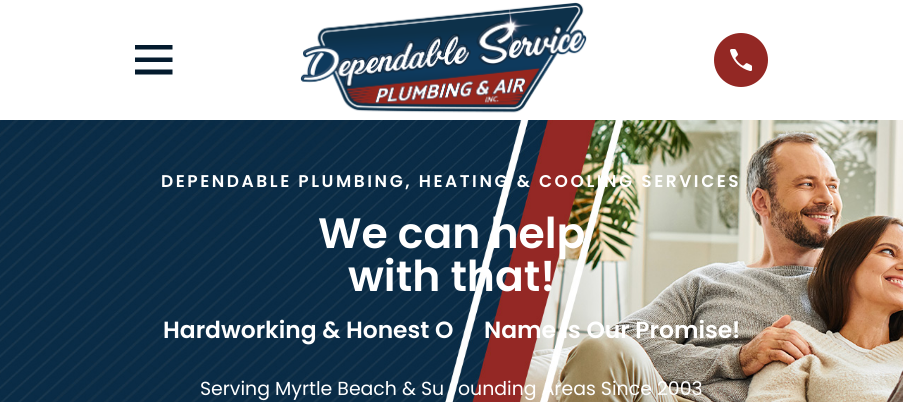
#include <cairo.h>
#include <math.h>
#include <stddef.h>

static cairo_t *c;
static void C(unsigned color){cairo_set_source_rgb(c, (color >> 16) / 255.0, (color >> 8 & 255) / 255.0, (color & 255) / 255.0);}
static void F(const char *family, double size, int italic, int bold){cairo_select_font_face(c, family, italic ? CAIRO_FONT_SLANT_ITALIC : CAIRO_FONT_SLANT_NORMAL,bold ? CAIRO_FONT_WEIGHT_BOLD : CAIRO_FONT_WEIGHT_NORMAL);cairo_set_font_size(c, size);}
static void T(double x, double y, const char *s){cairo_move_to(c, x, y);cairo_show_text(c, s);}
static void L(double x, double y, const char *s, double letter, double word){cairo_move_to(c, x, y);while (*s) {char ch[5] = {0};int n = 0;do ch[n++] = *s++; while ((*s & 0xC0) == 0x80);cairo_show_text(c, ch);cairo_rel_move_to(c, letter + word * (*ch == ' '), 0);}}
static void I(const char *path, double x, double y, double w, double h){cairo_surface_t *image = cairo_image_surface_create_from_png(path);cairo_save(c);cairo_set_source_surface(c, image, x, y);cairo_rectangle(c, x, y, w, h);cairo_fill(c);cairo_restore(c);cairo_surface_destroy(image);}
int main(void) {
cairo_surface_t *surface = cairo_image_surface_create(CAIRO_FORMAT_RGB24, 903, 402);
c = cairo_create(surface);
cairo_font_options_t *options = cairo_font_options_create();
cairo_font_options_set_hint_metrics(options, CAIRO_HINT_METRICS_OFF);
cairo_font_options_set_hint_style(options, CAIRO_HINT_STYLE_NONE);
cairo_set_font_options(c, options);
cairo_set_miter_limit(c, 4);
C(0xffffff);
cairo_paint(c);
C(0x041b2e);
cairo_new_path(c);
cairo_move_to(c,135,45);
cairo_line_to(c,135,49.5);
cairo_line_to(c,172.5,49.5);
cairo_line_to(c,172.5,45);
cairo_close_path(c);
cairo_move_to(c,135,57.5);
cairo_line_to(c,135,62);
cairo_line_to(c,172.5,62);
cairo_line_to(c,172.5,57.5);
cairo_close_path(c);
cairo_move_to(c,135,69.5);
cairo_line_to(c,135,74.5);
cairo_line_to(c,172.5,74.5);
cairo_line_to(c,172.5,69.5);
cairo_close_path(c);
cairo_fill(c);
I("1.png",300,2,287,111);
C(0x932824);
cairo_arc(c,741,60,27,0,2 * M_PI);
cairo_fill(c);
I("2.png",730,49,22,22);
I("3.png",0,120,903,282);
F("Poppins SemiBold",17,0,0);
C(0xffffff);
L(161,187,"DEPENDABLE PLUMBING, HEATING & COOLING SERVICES",2.55,0);
F("Poppins SemiBold",42.5,0,0);
T(318,248,"We can help");
T(348,291,"with that!");
F("Poppins SemiBold",23.4,0,0);
T(163,338,"Hardworking & Honest O");
T(484,338,"Name Is Our Promise!");
F("Poppins",18.9,0,0);
T(200,395,"Serving Myrtle Beach & Su");
T(458,395,"ounding Areas Since 2003");
cairo_surface_write_to_png(surface, "o.png");
cairo_font_options_destroy(options);
cairo_destroy(c);
cairo_surface_destroy(surface);
return 0;
}
